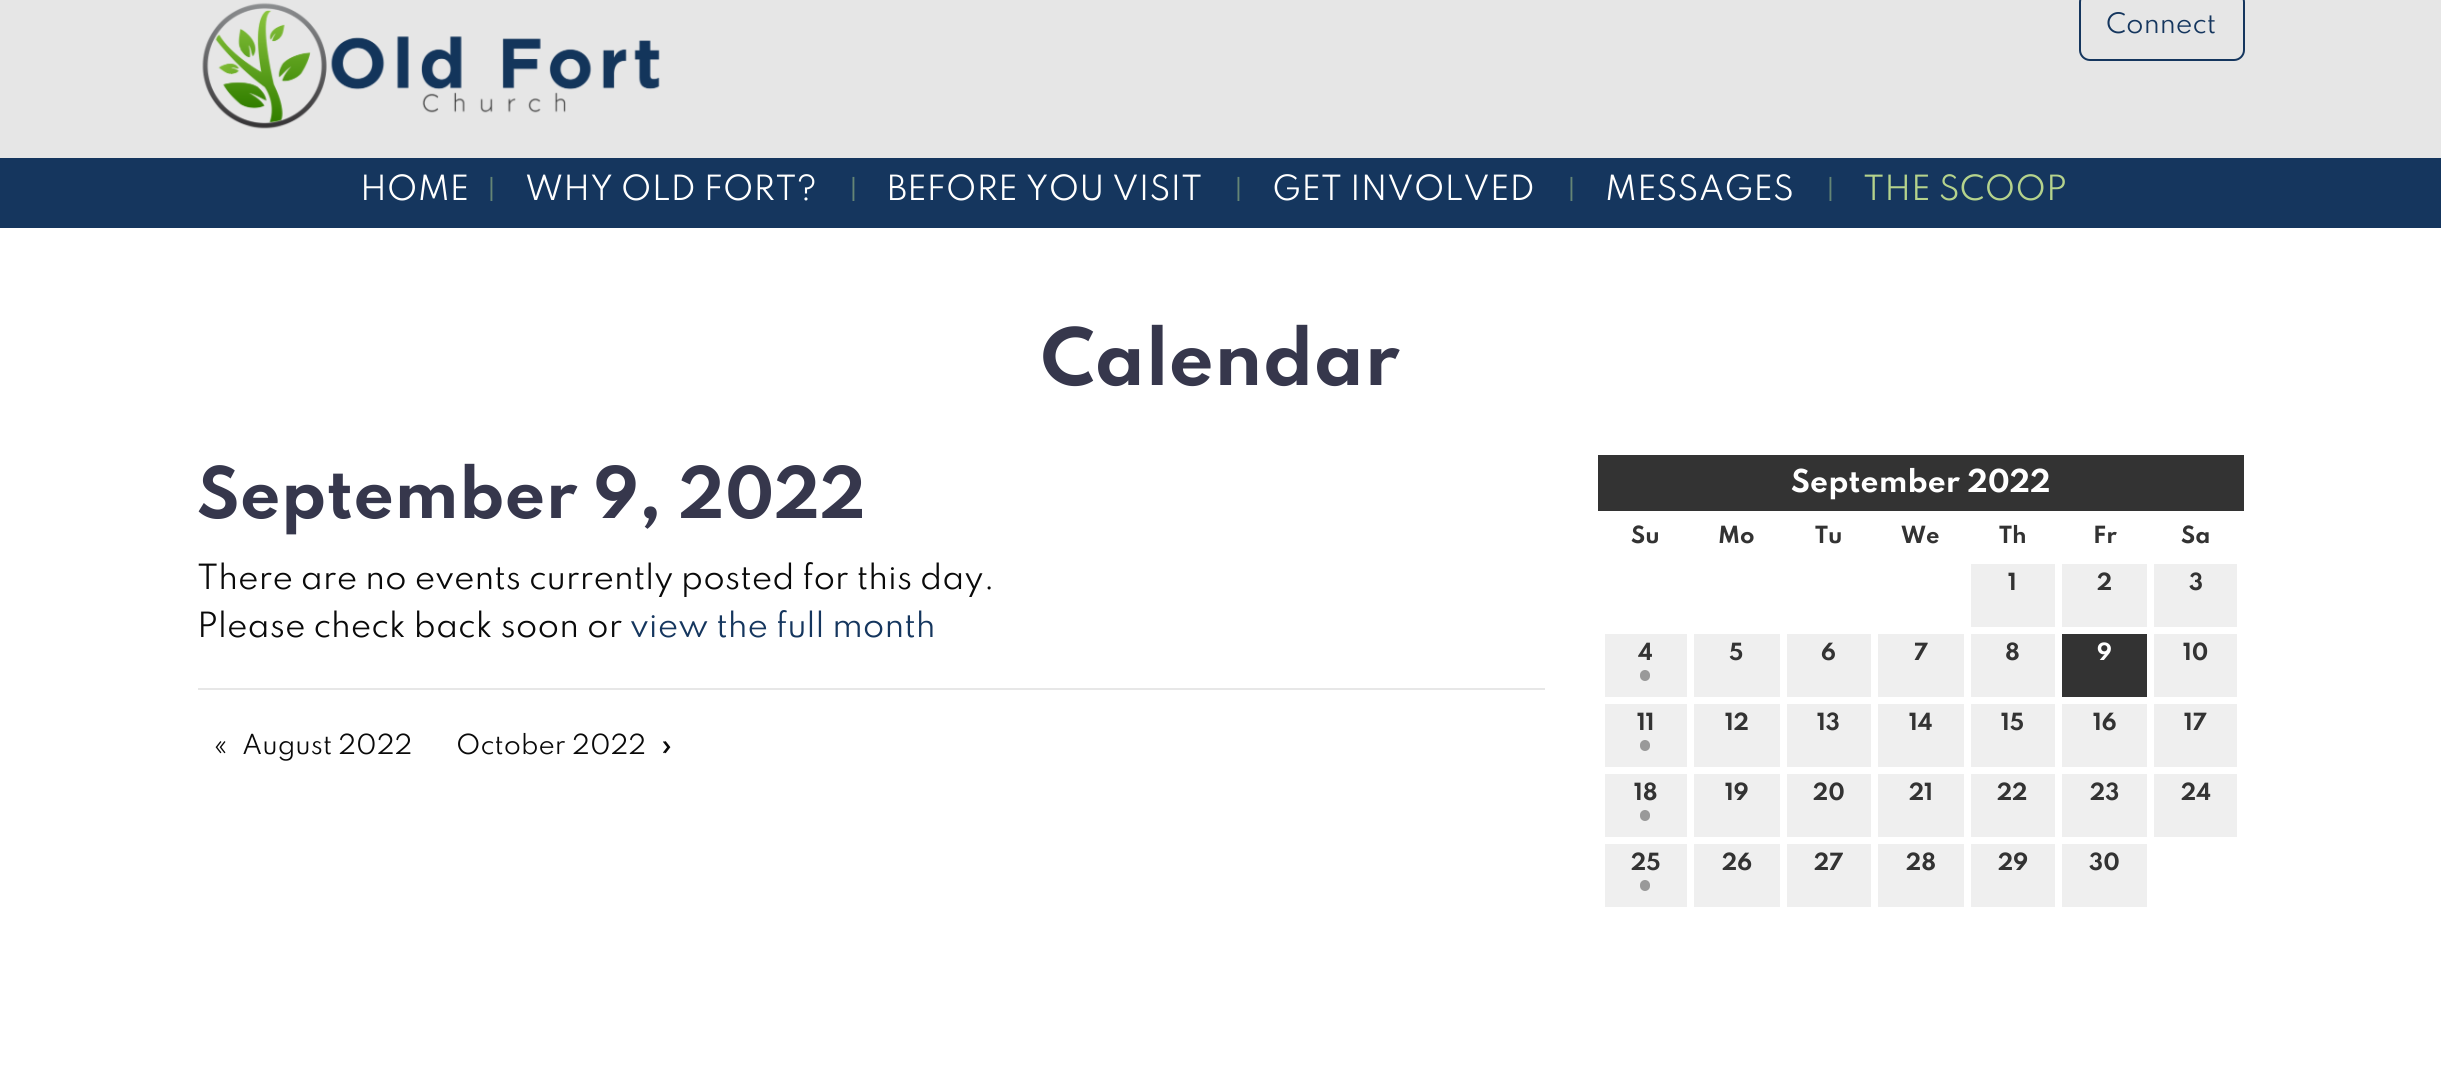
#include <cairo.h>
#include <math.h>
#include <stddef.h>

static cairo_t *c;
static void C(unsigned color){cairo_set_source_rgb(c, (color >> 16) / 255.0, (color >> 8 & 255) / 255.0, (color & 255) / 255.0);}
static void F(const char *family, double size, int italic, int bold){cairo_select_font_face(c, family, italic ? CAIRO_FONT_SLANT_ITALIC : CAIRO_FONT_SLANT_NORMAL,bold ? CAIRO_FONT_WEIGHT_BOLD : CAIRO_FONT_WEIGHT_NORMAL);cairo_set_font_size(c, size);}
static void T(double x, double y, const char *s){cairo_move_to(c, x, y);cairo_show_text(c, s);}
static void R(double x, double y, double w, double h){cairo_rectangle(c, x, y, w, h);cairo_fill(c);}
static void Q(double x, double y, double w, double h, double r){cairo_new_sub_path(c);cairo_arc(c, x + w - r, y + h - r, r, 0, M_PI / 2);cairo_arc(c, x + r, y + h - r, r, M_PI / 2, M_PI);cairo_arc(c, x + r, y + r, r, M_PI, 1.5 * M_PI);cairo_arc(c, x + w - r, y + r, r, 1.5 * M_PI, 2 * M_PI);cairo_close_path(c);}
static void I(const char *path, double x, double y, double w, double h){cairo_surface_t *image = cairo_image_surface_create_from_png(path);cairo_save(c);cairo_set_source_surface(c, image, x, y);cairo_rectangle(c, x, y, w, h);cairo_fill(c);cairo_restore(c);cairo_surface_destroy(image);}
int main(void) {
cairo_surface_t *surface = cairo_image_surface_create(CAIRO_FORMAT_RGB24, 2441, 1081);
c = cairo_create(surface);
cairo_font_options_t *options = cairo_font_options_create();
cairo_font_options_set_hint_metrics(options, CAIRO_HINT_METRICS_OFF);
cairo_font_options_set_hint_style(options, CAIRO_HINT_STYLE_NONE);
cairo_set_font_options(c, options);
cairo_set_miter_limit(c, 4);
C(0xffffff);
cairo_paint(c);
C(0xe6e6e6);
R(0,0,2441,158);
I("1.png",202,2,458,127);
Q(2080,-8,164,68,10);
C(0x15365e);
cairo_stroke(c);
F("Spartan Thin",25,0,0);
T(2106,33,"Connect");
R(0,158,2441,70);
F("Spartan Thin",30.8,0,0);
C(0xffffff);
T(360,200,"HOME");
F("Spartan Thin",28,0,0);
C(0x658575);
T(486,201,"|");
F("Spartan Thin",30.8,0,0);
C(0xffffff);
T(525,200,"WHY OLD FORT?");
F("Spartan Thin",28,0,0);
C(0x658575);
T(848,201,"|");
F("Spartan Thin",30.8,0,0);
C(0xffffff);
T(887,200,"BEFORE YOU VISIT");
F("Spartan Thin",28,0,0);
C(0x658575);
T(1233,201,"|");
F("Spartan Thin",30.8,0,0);
C(0xffffff);
T(1272,200,"GET INVOLVED");
F("Spartan Thin",28,0,0);
C(0x658575);
T(1566,201,"|");
F("Spartan Thin",30.8,0,0);
C(0xffffff);
T(1605,200,"MESSAGES");
F("Spartan Thin",28,0,0);
C(0x658575);
T(1825,201,"|");
F("Spartan Thin",30.8,0,0);
C(0xb5d38c);
T(1863,200,"THE SCOOP");
F("Spartan Thin",70,0,1);
C(0x36374c);
T(1041,385,"Calendar");
F("Spartan Thin",63,0,1);
T(197,518,"September 9, 2022");
F("Spartan Thin",30.8,0,0);
C(0x0a0a0a);
T(197,589,"There are no events currently posted for this day.");
T(197,637,"Please check back soon or");
C(0x15365e);
T(630,637,"view the full month");
C(0xe7e7e7);
R(198,688,1347,2);
F("Spartan Thin",24.5,0,0);
C(0x0a0a0a);
T(214,754,"«");
T(242,754,"August 2022");
T(456,754,"October 2022");
T(660,754,"»");
C(0x333333);
R(1598,455,646,56);
F("Spartan Thin",28,0,1);
C(0xffffff);
T(1791,492,"September 2022");
F("Spartan Thin",21,0,1);
C(0x333333);
T(1631,543,"Su");
T(1718,543,"Mo");
T(1815,543,"Tu");
T(1901,543,"We");
T(1999,543,"Th");
T(2093,543,"Fr");
T(2181,543,"Sa");
C(0xefefef);
R(1971,564,84,63);
C(0x333333);
T(2008,590,"1");
C(0xefefef);
R(2062,564,85,63);
C(0x333333);
T(2097,590,"2");
C(0xefefef);
R(2154,564,83,63);
C(0x333333);
T(2189,590,"3");
C(0xefefef);
R(1605,634,82,63);
C(0x333333);
T(1638,660,"4");
C(0x999999);
Q(1640,670,10,11,5);
cairo_fill(c);
C(0xefefef);
R(1694,634,86,63);
C(0x333333);
T(1729,660,"5");
C(0xefefef);
R(1787,634,84,63);
C(0x333333);
T(1821,660,"6");
C(0xefefef);
R(1878,634,86,63);
C(0x333333);
T(1914,660,"7");
C(0xefefef);
R(1971,634,84,63);
C(0x333333);
T(2005,660,"8");
R(2062,634,85,63);
C(0xffffff);
T(2097,660,"9");
C(0xefefef);
R(2154,634,83,63);
C(0x333333);
T(2183,660,"10");
C(0xefefef);
R(1605,704,82,63);
C(0x333333);
T(1637,730,"11");
C(0x999999);
Q(1640,740,10,11,5);
cairo_fill(c);
C(0xefefef);
R(1694,704,86,63);
C(0x333333);
T(1725,730,"12");
C(0xefefef);
R(1787,704,84,63);
C(0x333333);
T(1817,730,"13");
C(0xefefef);
R(1878,704,86,63);
C(0x333333);
T(1909,730,"14");
C(0xefefef);
R(1971,704,84,63);
C(0x333333);
T(2001,730,"15");
C(0xefefef);
R(2062,704,85,63);
C(0x333333);
T(2093,730,"16");
C(0xefefef);
R(2154,704,83,63);
C(0x333333);
T(2184,730,"17");
C(0xefefef);
R(1605,774,82,63);
C(0x333333);
T(1634,800,"18");
C(0x999999);
Q(1640,810,10,11,5);
cairo_fill(c);
C(0xefefef);
R(1694,774,86,63);
C(0x333333);
T(1725,800,"19");
C(0xefefef);
R(1787,774,84,63);
C(0x333333);
T(1813,800,"20");
C(0xefefef);
R(1878,774,86,63);
C(0x333333);
T(1909,800,"21");
C(0xefefef);
R(1971,774,84,63);
C(0x333333);
T(1997,800,"22");
C(0xefefef);
R(2062,774,85,63);
C(0x333333);
T(2090,800,"23");
C(0xefefef);
R(2154,774,83,63);
C(0x333333);
T(2181,800,"24");
C(0xefefef);
R(1605,844,82,63);
C(0x333333);
T(1631,870,"25");
C(0x999999);
Q(1640,880,10,11,5);
cairo_fill(c);
C(0xefefef);
R(1694,844,86,63);
C(0x333333);
T(1722,870,"26");
C(0xefefef);
R(1787,844,84,63);
C(0x333333);
T(1814,870,"27");
C(0xefefef);
R(1878,844,86,63);
C(0x333333);
T(1906,870,"28");
C(0xefefef);
R(1971,844,84,63);
C(0x333333);
T(1998,870,"29");
C(0xefefef);
R(2062,844,85,63);
C(0x333333);
T(2089,870,"30");
cairo_surface_write_to_png(surface, "o.png");
cairo_font_options_destroy(options);
cairo_destroy(c);
cairo_surface_destroy(surface);
return 0;
}
